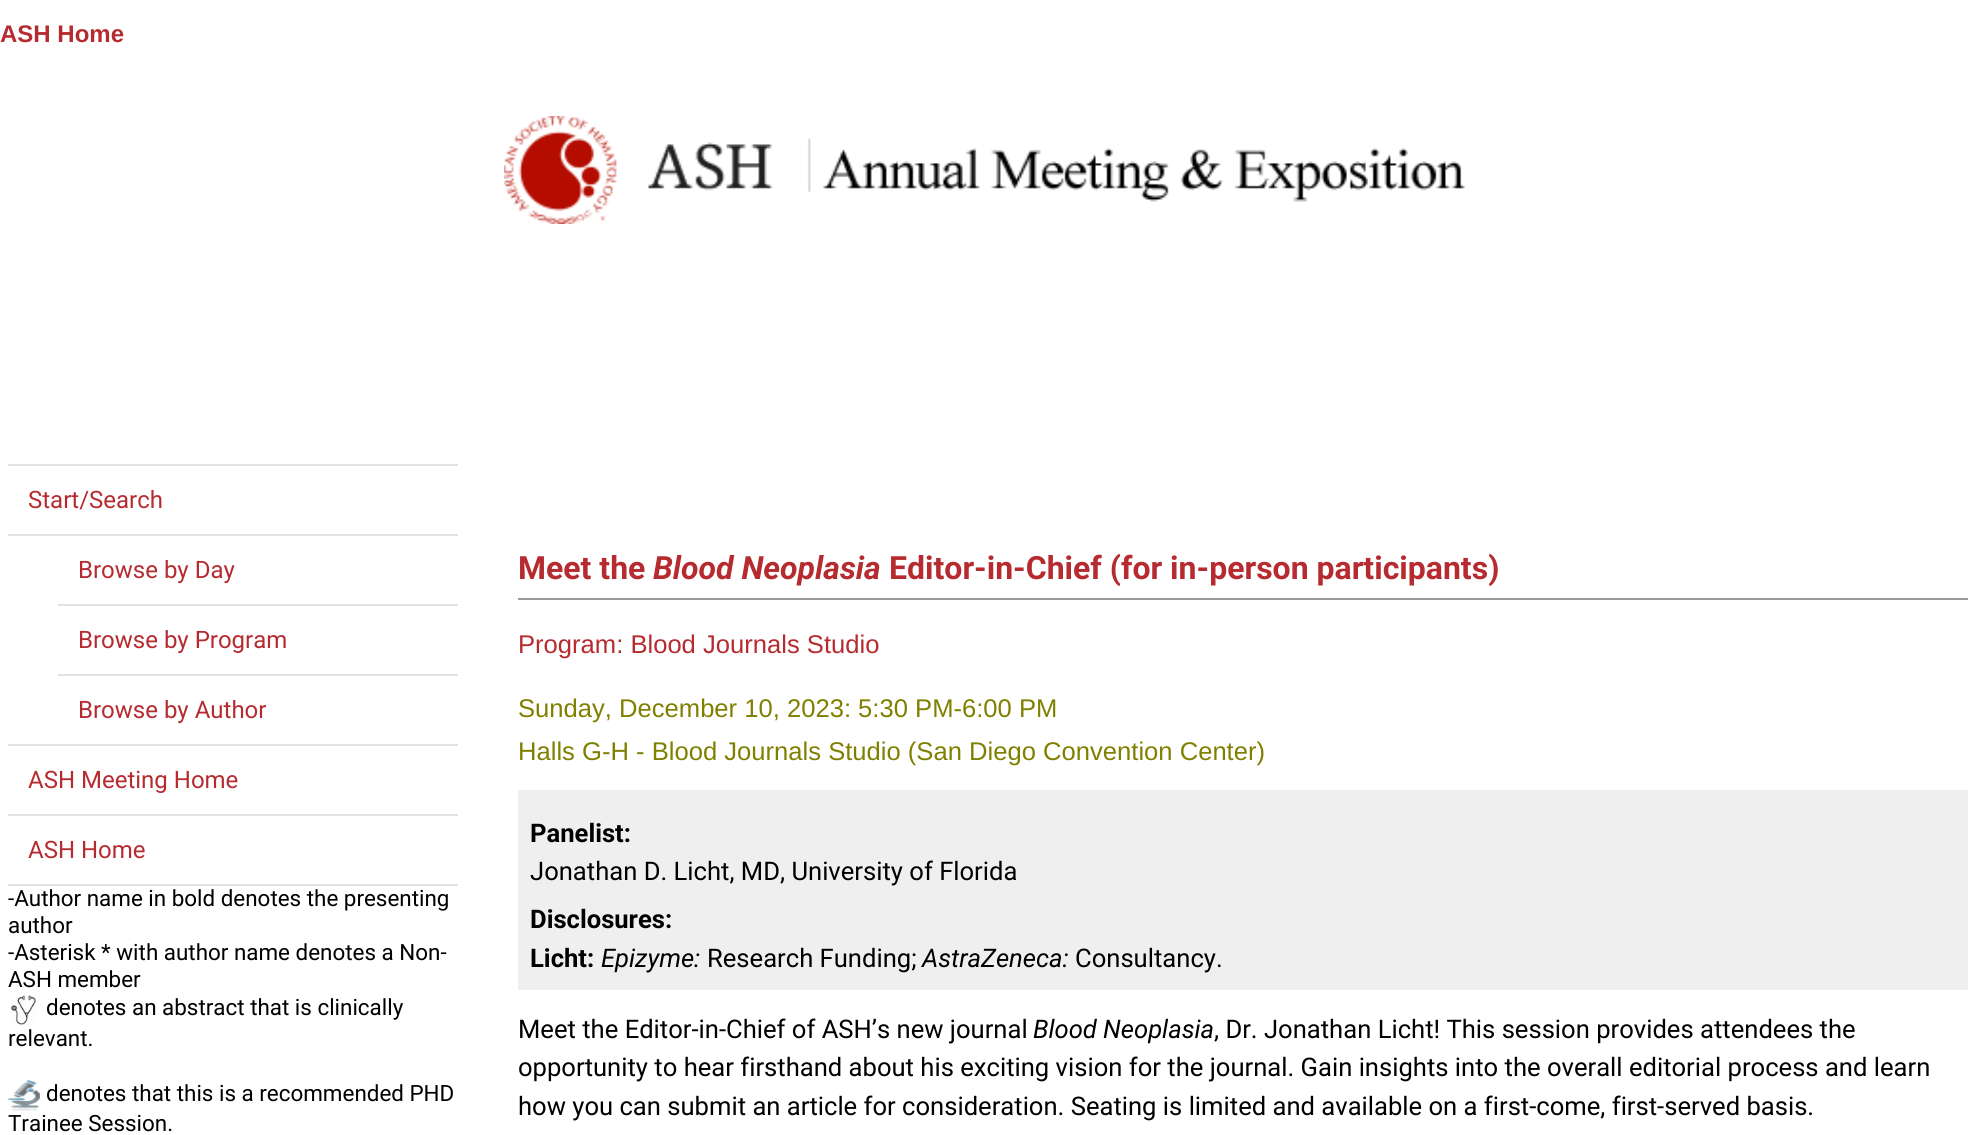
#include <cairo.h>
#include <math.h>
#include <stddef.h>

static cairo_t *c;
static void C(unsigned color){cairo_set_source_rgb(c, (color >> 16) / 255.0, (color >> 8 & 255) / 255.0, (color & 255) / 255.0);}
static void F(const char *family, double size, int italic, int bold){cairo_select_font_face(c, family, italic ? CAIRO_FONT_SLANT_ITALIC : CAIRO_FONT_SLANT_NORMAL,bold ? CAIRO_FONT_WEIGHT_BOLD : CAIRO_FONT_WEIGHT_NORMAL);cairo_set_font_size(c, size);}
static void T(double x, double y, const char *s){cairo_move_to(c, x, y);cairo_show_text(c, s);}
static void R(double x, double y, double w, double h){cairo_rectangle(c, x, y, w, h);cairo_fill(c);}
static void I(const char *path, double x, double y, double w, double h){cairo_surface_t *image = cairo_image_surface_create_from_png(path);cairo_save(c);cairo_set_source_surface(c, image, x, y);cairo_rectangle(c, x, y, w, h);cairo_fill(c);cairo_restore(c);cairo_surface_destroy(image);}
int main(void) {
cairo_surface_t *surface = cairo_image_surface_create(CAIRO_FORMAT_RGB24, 1975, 1135);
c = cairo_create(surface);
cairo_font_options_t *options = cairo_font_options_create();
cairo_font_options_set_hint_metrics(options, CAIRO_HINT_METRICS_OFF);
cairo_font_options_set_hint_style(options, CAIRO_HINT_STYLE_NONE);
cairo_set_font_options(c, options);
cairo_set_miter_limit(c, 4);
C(0xffffff);
cairo_paint(c);
F("Liberation Sans",24,0,1);
C(0xb62b30);
T(0,42,"ASH Home");
I("1.png",504,116,961,108);
C(0xe2e2e2);
R(8,464,450,2);
R(8,534,450,2);
F("Roboto",24,0,0);
C(0xb62b30);
T(28,508,"Start/Search");
C(0xe2e2e2);
R(58,604,400,2);
C(0xb62b30);
T(78,578,"Browse by Day");
C(0xe2e2e2);
R(58,674,400,2);
C(0xb62b30);
T(78,648,"Browse by Program");
T(78,718,"Browse by Author");
C(0xe2e2e2);
R(8,744,450,2);
R(8,814,450,2);
C(0xb62b30);
T(28,788,"ASH Meeting Home");
C(0xe2e2e2);
R(8,884,450,2);
C(0xb62b30);
T(28,858,"ASH Home");
F("Roboto",22.4,0,0);
C(0x000000);
T(8,906,"-Author name in bold denotes the presenting");
T(8,933,"author");
T(8,960,"-Asterisk * with author name denotes a Non-");
T(8,987,"ASH member");
I("2.png",11,995,25,30);
T(46,1015,"denotes an abstract that is clinically");
T(8,1046,"relevant.");
I("3.png",8,1080,32,32);
T(46,1101,"denotes that this is a recommended PHD");
T(8,1131,"Trainee Session.");
C(0x999999);
R(518,598,1450,2);
F("Roboto",32,0,1);
C(0xb62b30);
T(518,579,"Meet the");
F("Roboto",32,1,1);
T(653,579,"Blood Neoplasia");
F("Roboto",32,0,1);
T(889,579,"Editor-in-Chief (for in-person participants)");
F("Liberation Sans",25.6,0,0);
T(518,653,"Program: Blood Journals Studio");
C(0x808000);
T(518,717,"Sunday, December 10, 2023: 5:30 PM-6:00 PM");
T(518,760,"Halls G-H - Blood Journals Studio (San Diego Convention Center)");
C(0xefefef);
R(518,790,1450,200);
F("Roboto",25.6,0,1);
C(0x000000);
T(530,842,"Panelist:");
F("Roboto",25.6,0,0);
T(530,880,"Jonathan D. Licht, MD, University of Florida");
F("Roboto",25.6,0,1);
T(530,928,"Disclosures:");
T(530,967,"Licht:");
F("Roboto",25.6,1,0);
T(601,967,"Epizyme:");
F("Roboto",25.6,0,0);
T(707,967,"Research Funding;");
F("Roboto",25.6,1,0);
T(922,967,"AstraZeneca:");
F("Roboto",25.6,0,0);
T(1075,967,"Consultancy.");
T(518,1038,"Meet the Editor-in-Chief of ASH’s new journal");
F("Roboto",25.6,1,0);
T(1033,1038,"Blood Neoplasia");
F("Roboto",25.6,0,0);
T(1214,1038,", Dr. Jonathan Licht! This session provides attendees the");
T(518,1076,"opportunity to hear firsthand about his exciting vision for the journal. Gain insights into the overall editorial process and learn");
T(518,1115,"how you can submit an article for consideration. Seating is limited and available on a first-come, first-served basis.");
cairo_surface_write_to_png(surface, "o.png");
cairo_font_options_destroy(options);
cairo_destroy(c);
cairo_surface_destroy(surface);
return 0;
}
